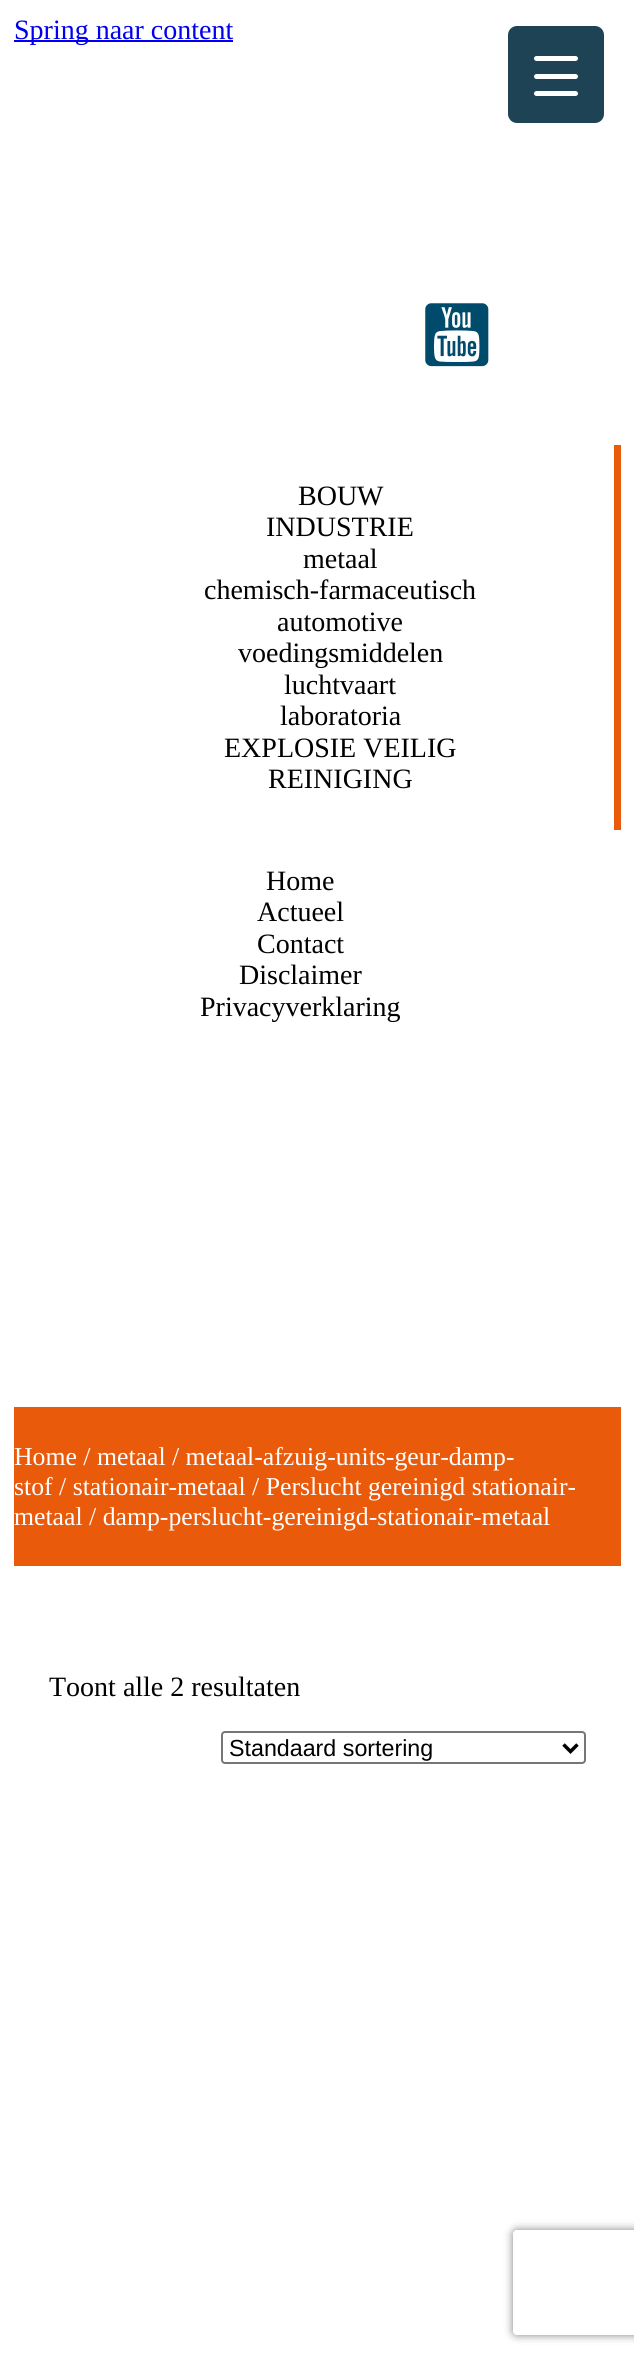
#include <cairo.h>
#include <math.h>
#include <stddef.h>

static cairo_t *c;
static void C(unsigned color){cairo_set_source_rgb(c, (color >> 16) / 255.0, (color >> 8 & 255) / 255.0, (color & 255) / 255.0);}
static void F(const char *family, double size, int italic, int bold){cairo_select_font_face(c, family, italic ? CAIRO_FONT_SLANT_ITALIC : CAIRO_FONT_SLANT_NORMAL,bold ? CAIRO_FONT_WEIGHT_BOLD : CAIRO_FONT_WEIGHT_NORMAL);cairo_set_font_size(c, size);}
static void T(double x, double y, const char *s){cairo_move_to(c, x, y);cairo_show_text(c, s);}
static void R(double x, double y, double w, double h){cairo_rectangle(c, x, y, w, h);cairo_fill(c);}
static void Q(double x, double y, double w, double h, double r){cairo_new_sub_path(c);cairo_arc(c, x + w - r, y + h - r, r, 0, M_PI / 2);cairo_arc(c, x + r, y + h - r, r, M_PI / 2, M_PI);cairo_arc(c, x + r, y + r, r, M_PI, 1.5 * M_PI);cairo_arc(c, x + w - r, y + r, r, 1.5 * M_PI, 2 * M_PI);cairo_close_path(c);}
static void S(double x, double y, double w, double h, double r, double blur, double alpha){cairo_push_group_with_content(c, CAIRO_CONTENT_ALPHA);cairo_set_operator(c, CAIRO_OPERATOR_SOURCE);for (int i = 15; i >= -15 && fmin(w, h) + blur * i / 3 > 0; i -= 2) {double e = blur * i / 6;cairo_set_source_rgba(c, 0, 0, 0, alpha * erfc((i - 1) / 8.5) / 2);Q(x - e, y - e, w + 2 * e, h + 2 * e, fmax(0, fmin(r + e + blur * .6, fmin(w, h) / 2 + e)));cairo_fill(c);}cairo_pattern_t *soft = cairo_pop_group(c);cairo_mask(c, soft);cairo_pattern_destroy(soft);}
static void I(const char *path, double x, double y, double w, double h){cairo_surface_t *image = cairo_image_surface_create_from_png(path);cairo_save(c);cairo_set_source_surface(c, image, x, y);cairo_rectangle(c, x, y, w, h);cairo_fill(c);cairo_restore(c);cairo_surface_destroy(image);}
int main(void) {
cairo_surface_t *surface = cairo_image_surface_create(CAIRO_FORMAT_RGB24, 634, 2359);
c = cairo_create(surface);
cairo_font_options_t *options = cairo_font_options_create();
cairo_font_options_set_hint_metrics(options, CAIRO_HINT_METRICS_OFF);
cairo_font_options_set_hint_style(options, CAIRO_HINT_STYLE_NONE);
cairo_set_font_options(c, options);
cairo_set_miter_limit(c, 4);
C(0xffffff);
cairo_paint(c);
C(0x0000ee);
R(14,40,219,2);
F("Liberation Serif",28,0,0);
T(14,39,"Spring naar content");
C(0x1d4354);
Q(508,26,96,97,9);
cairo_fill(c);
C(0xffffff);
Q(534,74,44,5,2.5);
cairo_fill(c);
Q(534,56,44,5,2.5);
cairo_fill(c);
Q(534,91,44,5,2.5);
cairo_fill(c);
I("1.png",425,303,64,64);
C(0xea5a0b);
R(614,445,7,385);
C(0x000000);
T(298,505,"BOUW");
T(266,536,"INDUSTRIE");
T(303,568,"metaal");
T(204,599,"chemisch-farmaceutisch");
T(277,631,"automotive");
T(238,662,"voedingsmiddelen");
T(284,694,"luchtvaart");
T(280,725,"laboratoria");
T(224,757,"EXPLOSIE VEILIG");
T(268,788,"REINIGING");
T(266,890,"Home");
T(257,921,"Actueel");
T(257,953,"Contact");
T(239,984,"Disclaimer");
T(200,1016,"Privacyverklaring");
C(0xea5a0b);
R(14,1407,607,159);
F("Liberation Serif",25.75,0,0);
C(0xffffff);
T(14,1465,"Home / metaal / metaal-afzuig-units-geur-damp-");
T(14,1495,"stof / stationair-metaal / Perslucht gereinigd stationair-");
T(14,1525,"metaal / damp-perslucht-gereinigd-stationair-metaal");
F("Liberation Serif",28,0,0);
C(0x000000);
T(49,1696,"Toont alle 2 resultaten");
Q(222,1732,363,31,3);
C(0x767676);
cairo_stroke(c);
cairo_new_path(c);
cairo_move_to(c,563.5,1744.5);
cairo_line_to(c,570.5,1751.5);
cairo_line_to(c,577.5,1744.5);
C(0x000000);
cairo_set_line_width(c,3.5);
cairo_stroke(c);
F("Liberation Sans",23.25,0,0);
T(229,1756,"Standaard sortering");
cairo_save(c);
cairo_set_fill_rule(c,CAIRO_FILL_RULE_EVEN_ODD);
cairo_new_path(c);
cairo_move_to(c,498,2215);
cairo_line_to(c,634,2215);
cairo_line_to(c,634,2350);
cairo_line_to(c,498,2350);
cairo_close_path(c);
cairo_move_to(c,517,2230);
cairo_line_to(c,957,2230);
cairo_curve_to(c,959,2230,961,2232,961,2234);
cairo_line_to(c,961,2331);
cairo_curve_to(c,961,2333,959,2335,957,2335);
cairo_line_to(c,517,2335);
cairo_curve_to(c,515,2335,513,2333,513,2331);
cairo_line_to(c,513,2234);
cairo_curve_to(c,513,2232,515,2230,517,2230);
cairo_close_path(c);
cairo_clip(c);
C(0x808080);
S(513,2230,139,105,4,4.5,1);
cairo_restore(c);
cairo_surface_write_to_png(surface, "o.png");
cairo_font_options_destroy(options);
cairo_destroy(c);
cairo_surface_destroy(surface);
return 0;
}
